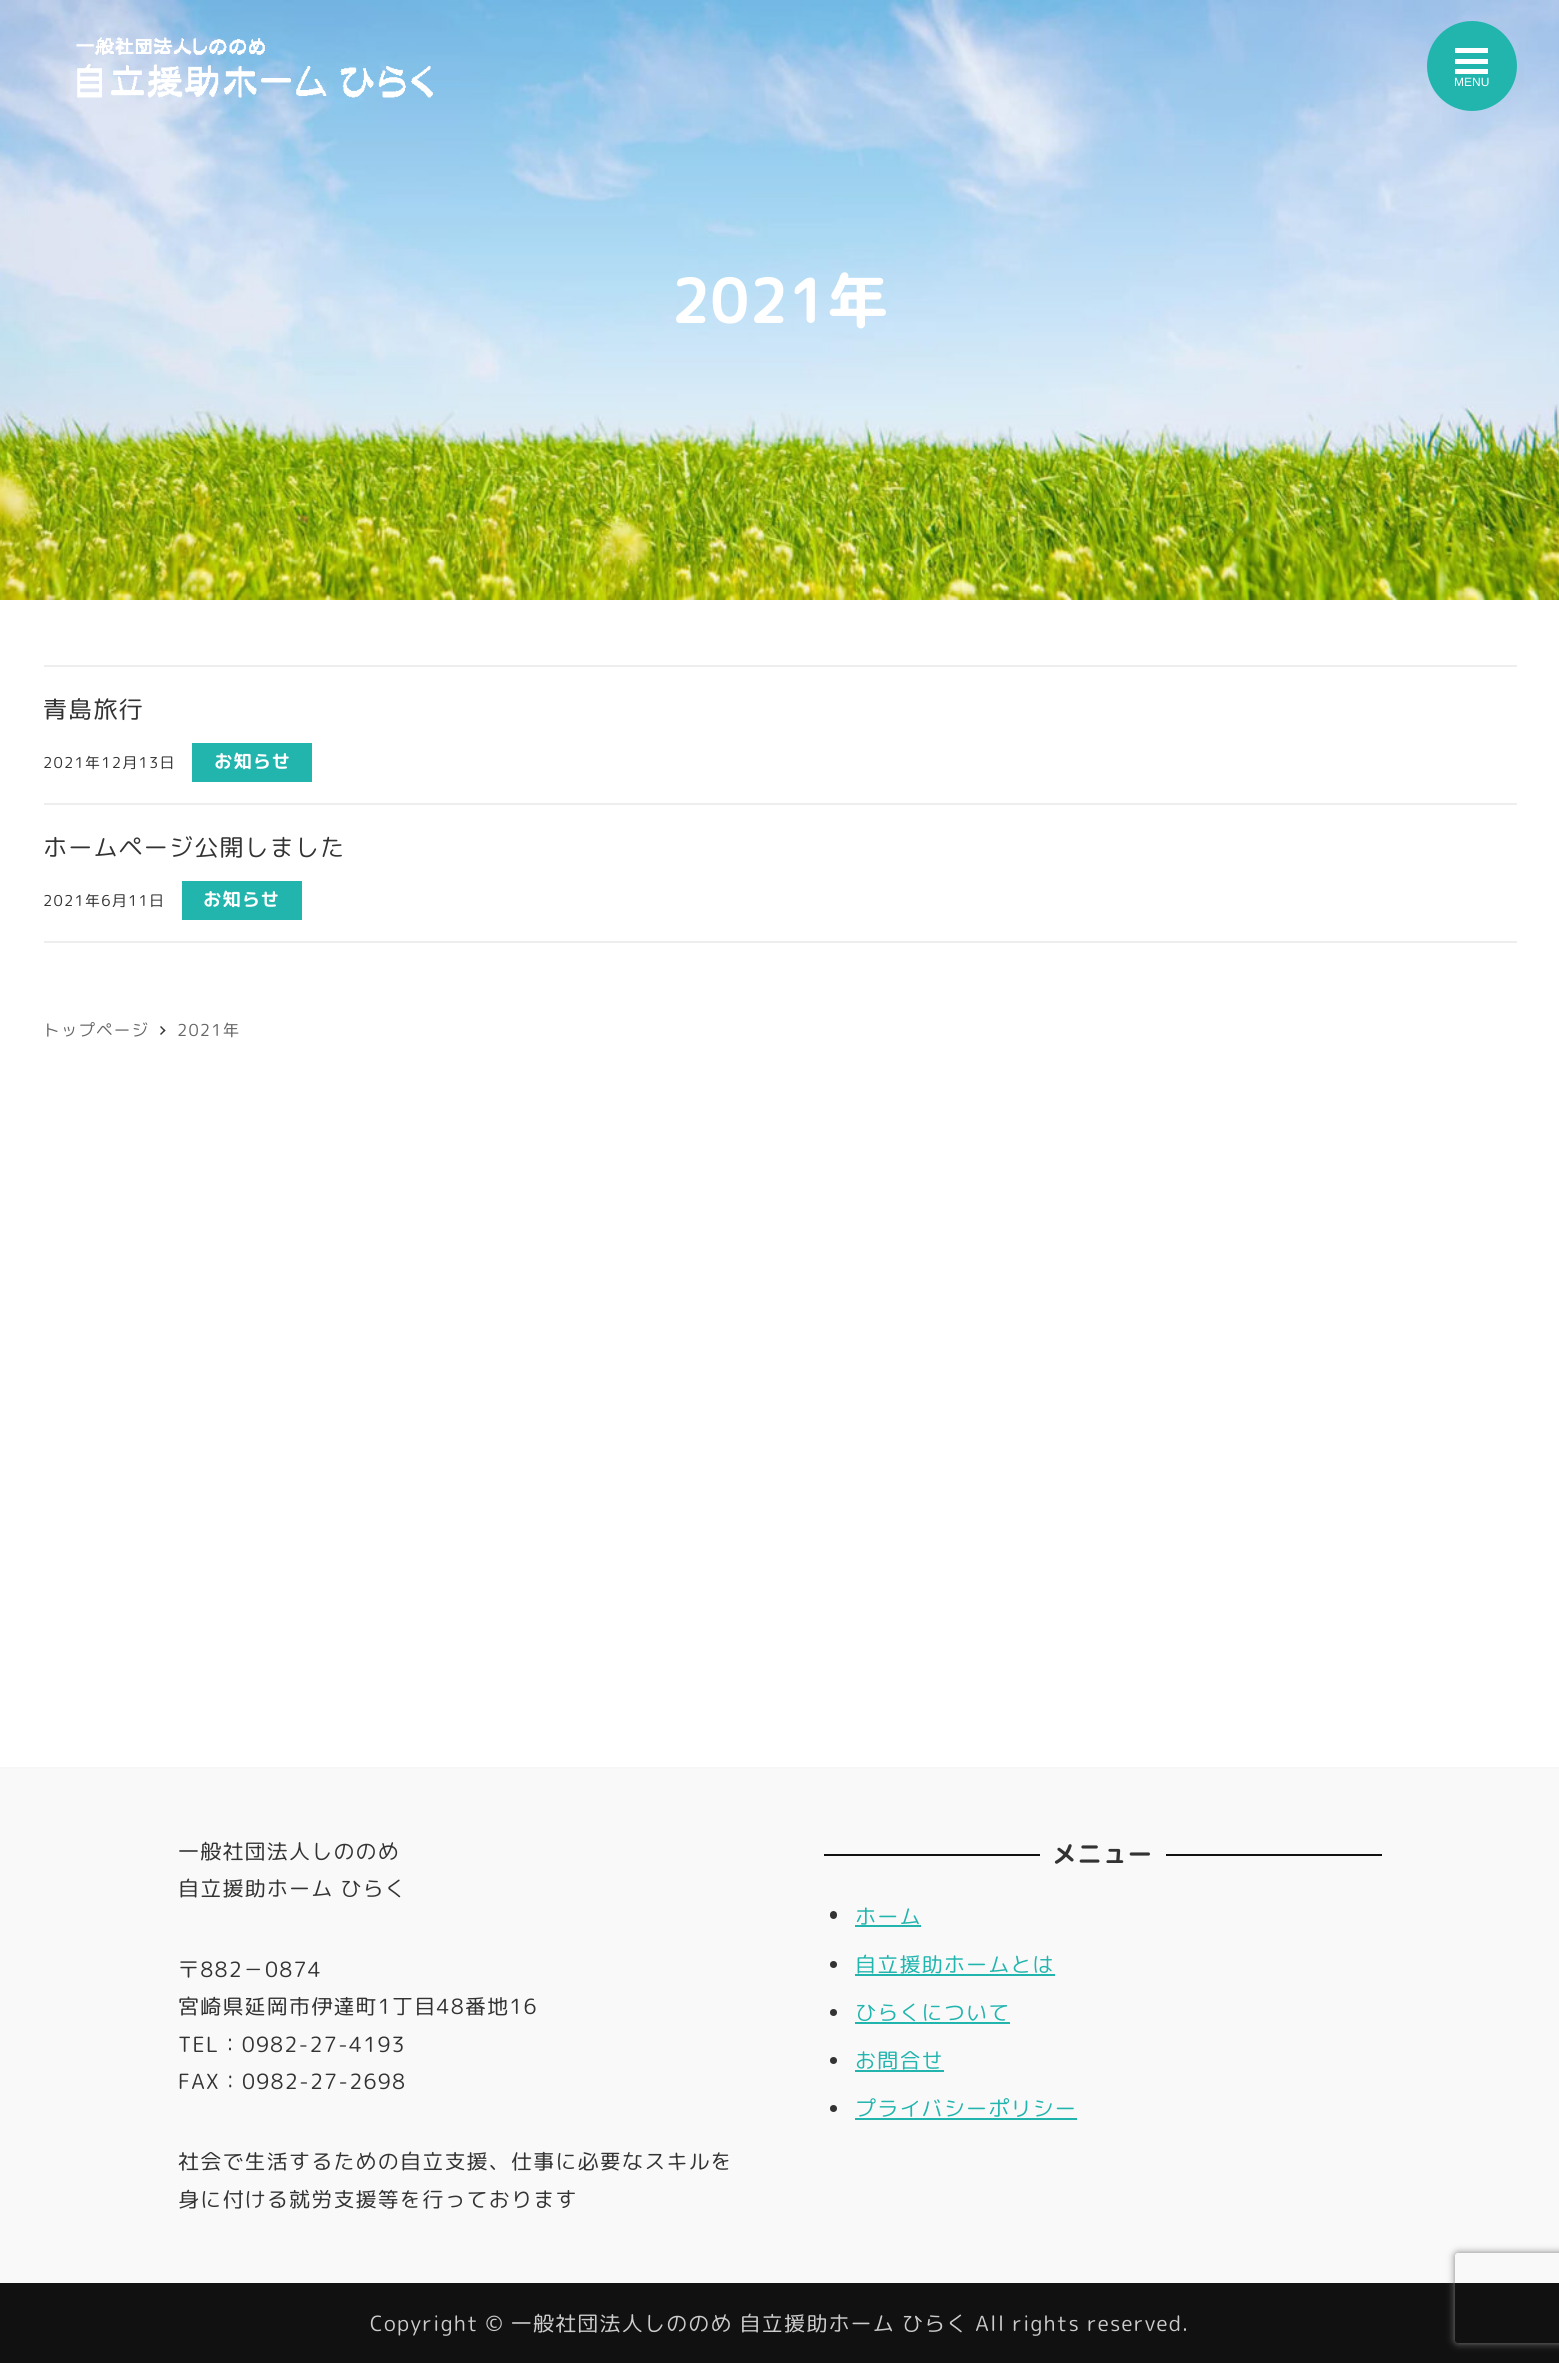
#include <cairo.h>
#include <math.h>
#include <stddef.h>

static cairo_t *c;
static void C(unsigned color){cairo_set_source_rgb(c, (color >> 16) / 255.0, (color >> 8 & 255) / 255.0, (color & 255) / 255.0);}
static void F(const char *family, double size, int italic, int bold){cairo_select_font_face(c, family, italic ? CAIRO_FONT_SLANT_ITALIC : CAIRO_FONT_SLANT_NORMAL,bold ? CAIRO_FONT_WEIGHT_BOLD : CAIRO_FONT_WEIGHT_NORMAL);cairo_set_font_size(c, size);}
static void T(double x, double y, const char *s){cairo_move_to(c, x, y);cairo_show_text(c, s);}
static void L(double x, double y, const char *s, double letter, double word){cairo_move_to(c, x, y);while (*s) {char ch[5] = {0};int n = 0;do ch[n++] = *s++; while ((*s & 0xC0) == 0x80);cairo_show_text(c, ch);cairo_rel_move_to(c, letter + word * (*ch == ' '), 0);}}
static void R(double x, double y, double w, double h){cairo_rectangle(c, x, y, w, h);cairo_fill(c);}
static void Q(double x, double y, double w, double h, double r){cairo_new_sub_path(c);cairo_arc(c, x + w - r, y + h - r, r, 0, M_PI / 2);cairo_arc(c, x + r, y + h - r, r, M_PI / 2, M_PI);cairo_arc(c, x + r, y + r, r, M_PI, 1.5 * M_PI);cairo_arc(c, x + w - r, y + r, r, 1.5 * M_PI, 2 * M_PI);cairo_close_path(c);}
static void S(double x, double y, double w, double h, double r, double blur, double alpha){cairo_push_group_with_content(c, CAIRO_CONTENT_ALPHA);cairo_set_operator(c, CAIRO_OPERATOR_SOURCE);for (int i = 15; i >= -15 && fmin(w, h) + blur * i / 3 > 0; i -= 2) {double e = blur * i / 6;cairo_set_source_rgba(c, 0, 0, 0, alpha * erfc((i - 1) / 8.5) / 2);Q(x - e, y - e, w + 2 * e, h + 2 * e, fmax(0, fmin(r + e + blur * .6, fmin(w, h) / 2 + e)));cairo_fill(c);}cairo_pattern_t *soft = cairo_pop_group(c);cairo_mask(c, soft);cairo_pattern_destroy(soft);}
static void I(const char *path, double x, double y, double w, double h){cairo_surface_t *image = cairo_image_surface_create_from_png(path);cairo_save(c);cairo_set_source_surface(c, image, x, y);cairo_rectangle(c, x, y, w, h);cairo_fill(c);cairo_restore(c);cairo_surface_destroy(image);}
int main(void) {
cairo_surface_t *surface = cairo_image_surface_create(CAIRO_FORMAT_RGB24, 1559, 2363);
c = cairo_create(surface);
cairo_font_options_t *options = cairo_font_options_create();
cairo_font_options_set_hint_metrics(options, CAIRO_HINT_METRICS_OFF);
cairo_font_options_set_hint_style(options, CAIRO_HINT_STYLE_NONE);
cairo_set_font_options(c, options);
cairo_set_miter_limit(c, 4);
C(0xffffff);
cairo_paint(c);
I("2.png",0,0,1559,600);
I("1.png",76,37,357,61);
C(0x22b5ae);
cairo_arc(c,1472,66,45,0,2 * M_PI);
cairo_fill(c);
C(0xffffff);
R(1455,48,33,5);
R(1455,59,33,5);
R(1455,69,33,5);
F("Liberation Sans",12,0,0);
T(1454,86,"MENU");
F("Rounded Mplus 1c",60,0,1);
L(671,323,"2021年",1.2,0);
C(0xeeeeee);
R(44,665,1473,2);
R(44,803,1473,2);
F("Rounded Mplus 1c",24,0,0);
C(0x333333);
L(43,718,"青島旅行",1.2,0);
F("Rounded Mplus 1c",15,0,0);
L(43,768,"2021年12月13日",1.2,0);
C(0x22b5ae);
R(192,743,120,39);
F("Rounded Mplus 1c",18,0,1);
C(0xffffff);
L(214,768,"お知らせ",1.2,0);
C(0xeeeeee);
R(44,941,1473,2);
F("Rounded Mplus 1c",24,0,0);
C(0x333333);
L(43,856,"ホームページ公開しました",1.2,0);
F("Rounded Mplus 1c",15,0,0);
L(43,906,"2021年6月11日",1.2,0);
C(0x22b5ae);
R(182,881,120,39);
F("Rounded Mplus 1c",18,0,1);
C(0xffffff);
L(203,906,"お知らせ",1.2,0);
F("Rounded Mplus 1c",16.5,0,0);
C(0x666666);
L(43,1036,"トップページ",1.2,0);
C(0x333333);
cairo_new_path(c);
cairo_move_to(c,161,1026);
cairo_line_to(c,165.5,1030.5);
cairo_line_to(c,164.5,1031.5);
cairo_line_to(c,160,1027);
cairo_close_path(c);
cairo_fill(c);
cairo_new_path(c);
cairo_move_to(c,164.5,1029.5);
cairo_line_to(c,165.5,1030.5);
cairo_line_to(c,161,1035);
cairo_line_to(c,160,1034);
cairo_close_path(c);
cairo_fill(c);
C(0x666666);
L(177,1036,"2021年",1.2,0);
C(0xf9f9f9);
R(0,1769,1559,514);
C(0xf7f7f7);
R(0,1767,1559,2);
F("Rounded Mplus 1c",21,0,0);
C(0x333333);
L(178,1859,"一般社団法人しののめ",1.2,0);
L(178,1896,"自立援助ホーム ひらく",1.2,0);
L(178,1977,"〒882－0874",1.2,0);
L(178,2014,"宮崎県延岡市伊達町1丁目48番地16",1.2,0);
L(178,2052,"TEL：0982-27-4193",1.2,0);
L(178,2089,"FAX：0982-27-2698",1.2,0);
L(178,2169,"社会で生活するための自立支援、仕事に必要なスキルを",1.2,0);
L(178,2207,"身に付ける就労支援等を行っております",1.2,0);
C(0x111111);
R(824,1854,216,2);
F("Rounded Mplus 1c",24,0,1);
C(0x333333);
L(1052,1863,"メニュー",1.2,0);
C(0x111111);
R(1166,1854,216,2);
C(0x333333);
Q(830,1911,7,8,3.5);
cairo_fill(c);
F("Rounded Mplus 1c",21,0,0);
C(0x22b5ae);
L(855,1924,"ホーム",1.2,0);
R(855,1925,66,2);
C(0x333333);
cairo_new_path(c);
cairo_arc(c,833.5,1964.5,3.5,0,2 * M_PI);
cairo_fill(c);
C(0x22b5ae);
L(855,1972,"自立援助ホームとは",1.2,0);
R(855,1974,200,2);
C(0x333333);
cairo_new_path(c);
cairo_arc(c,833.5,2012.5,3.5,0,2 * M_PI);
cairo_fill(c);
C(0x22b5ae);
L(855,2020,"ひらくについて",1.2,0);
R(855,2022,155,2);
C(0x333333);
cairo_new_path(c);
cairo_arc(c,833.5,2060.5,3.5,0,2 * M_PI);
cairo_fill(c);
C(0x22b5ae);
L(855,2068,"お問合せ",1.2,0);
R(855,2070,89,2);
C(0x333333);
cairo_new_path(c);
cairo_arc(c,833.5,2108.5,3.5,0,2 * M_PI);
cairo_fill(c);
C(0x22b5ae);
L(855,2116,"プライバシーポリシー",1.2,0);
R(855,2118,222,2);
C(0x111111);
R(0,2283,1559,80);
C(0xcccccc);
L(370,2331,"Copyright © 一般社団法人しののめ 自立援助ホーム ひらく All rights reserved.",1.2,0);
cairo_save(c);
cairo_set_fill_rule(c,CAIRO_FILL_RULE_EVEN_ODD);
cairo_new_path(c);
cairo_move_to(c,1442,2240);
cairo_line_to(c,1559,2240);
cairo_line_to(c,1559,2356);
cairo_line_to(c,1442,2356);
cairo_close_path(c);
cairo_move_to(c,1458,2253);
cairo_line_to(c,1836,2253);
cairo_curve_to(c,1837.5,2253,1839,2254.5,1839,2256);
cairo_line_to(c,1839,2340);
cairo_curve_to(c,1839,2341.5,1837.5,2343,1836,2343);
cairo_line_to(c,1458,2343);
cairo_curve_to(c,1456.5,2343,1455,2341.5,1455,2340);
cairo_line_to(c,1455,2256);
cairo_curve_to(c,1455,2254.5,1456.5,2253,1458,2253);
cairo_close_path(c);
cairo_clip(c);
C(0x808080);
S(1455,2253,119,90,3,4,1);
cairo_restore(c);
cairo_surface_write_to_png(surface, "o.png");
cairo_font_options_destroy(options);
cairo_destroy(c);
cairo_surface_destroy(surface);
return 0;
}
